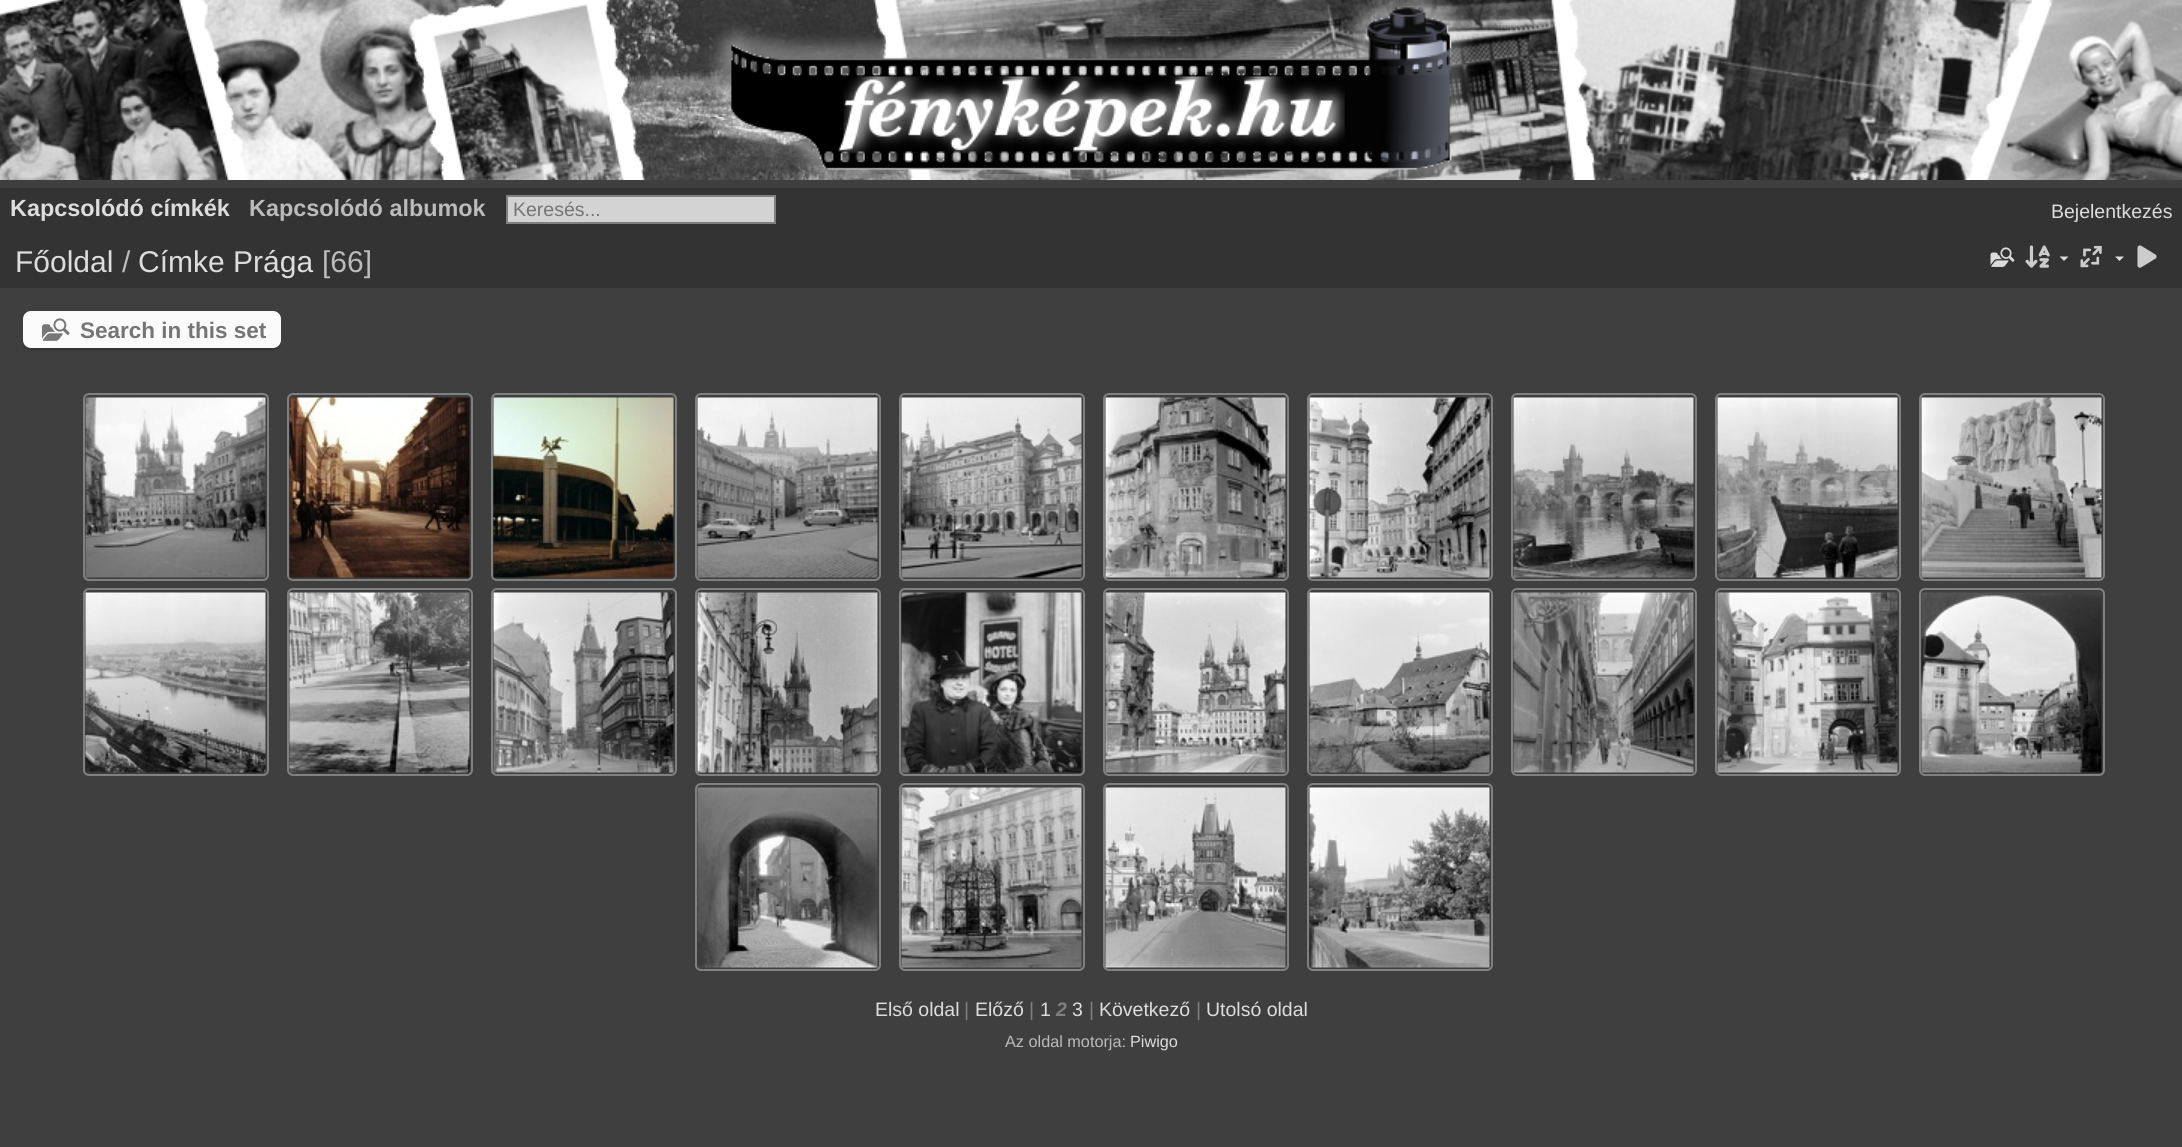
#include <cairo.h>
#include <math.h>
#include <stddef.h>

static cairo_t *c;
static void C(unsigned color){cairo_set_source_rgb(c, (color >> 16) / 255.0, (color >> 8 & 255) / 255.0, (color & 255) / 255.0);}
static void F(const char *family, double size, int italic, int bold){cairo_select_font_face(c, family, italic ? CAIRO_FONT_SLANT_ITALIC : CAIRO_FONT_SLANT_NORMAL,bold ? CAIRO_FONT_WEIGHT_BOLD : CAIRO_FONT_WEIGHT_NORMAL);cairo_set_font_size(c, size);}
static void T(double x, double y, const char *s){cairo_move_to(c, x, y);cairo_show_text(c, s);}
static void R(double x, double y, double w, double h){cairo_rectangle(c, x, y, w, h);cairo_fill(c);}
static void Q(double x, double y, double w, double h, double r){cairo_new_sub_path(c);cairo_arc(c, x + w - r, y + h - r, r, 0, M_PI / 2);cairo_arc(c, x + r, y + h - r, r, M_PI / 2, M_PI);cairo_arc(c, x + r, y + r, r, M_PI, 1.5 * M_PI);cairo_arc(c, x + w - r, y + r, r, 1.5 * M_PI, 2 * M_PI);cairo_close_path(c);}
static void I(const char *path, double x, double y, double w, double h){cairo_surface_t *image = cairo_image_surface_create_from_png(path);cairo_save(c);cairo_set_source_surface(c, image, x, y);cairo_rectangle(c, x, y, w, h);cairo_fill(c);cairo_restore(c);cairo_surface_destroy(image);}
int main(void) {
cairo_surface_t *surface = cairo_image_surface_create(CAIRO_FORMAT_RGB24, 2182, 1147);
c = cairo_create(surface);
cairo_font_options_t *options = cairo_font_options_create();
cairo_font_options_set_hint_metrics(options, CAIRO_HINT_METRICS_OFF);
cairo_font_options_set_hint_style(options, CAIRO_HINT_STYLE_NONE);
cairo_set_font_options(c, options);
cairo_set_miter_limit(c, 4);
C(0x3f3f3f);
cairo_paint(c);
C(0xd4d4d4);
R(246,166,1281,14);
I("1.png",0,0,2182,180);
C(0x333333);
R(0,188,2182,100);
F("Liberation Sans",23.4,0,1);
C(0xdddddd);
T(10,216,"Kapcsolódó címkék");
C(0xbbbbbb);
T(249,216,"Kapcsolódó albumok");
C(0xd3d3d3);
cairo_rectangle(c,507,196,268,27);
cairo_fill_preserve(c);
C(0x808080);
cairo_stroke(c);
F("Liberation Sans",19.5,0,0);
C(0x757575);
T(513,216,"Keresés...");
C(0xdddddd);
T(2051,218,"Bejelentkezés");
F("Liberation Sans",30,0,0);
T(15,272,"Főoldal");
C(0xbbbbbb);
T(122,272,"/");
C(0xdddddd);
T(138,272,"Címke Prága");
C(0xbbbbbb);
T(322,272,"[66]");
I("2.png",1990,247,25,20);
I("3.png",2025,245,25,23);
C(0xdddddd);
cairo_new_path(c);
cairo_move_to(c,2059.5,256.5);
cairo_line_to(c,2068.5,256.5);
cairo_line_to(c,2064,261);
cairo_close_path(c);
cairo_fill(c);
I("4.png",2080,245,22,23);
cairo_new_path(c);
cairo_move_to(c,2115,256.5);
cairo_line_to(c,2124,256.5);
cairo_line_to(c,2119.5,261);
cairo_close_path(c);
cairo_fill(c);
I("5.png",2137,245,20,23);
C(0x363636);
cairo_new_path(c);
cairo_move_to(c,23,343);
cairo_curve_to(c,23,348,27,351,31,351);
cairo_line_to(c,273,351);
cairo_curve_to(c,277,351,281,347,281,343);
cairo_line_to(c,281,322);
cairo_line_to(c,280,319);
cairo_line_to(c,280,340);
cairo_curve_to(c,280,345,277,348,273,348);
cairo_line_to(c,30,348);
cairo_curve_to(c,27,348,24,346,23,343);
cairo_close_path(c);
cairo_fill(c);
C(0xfafafa);
Q(23,311,258,37,8);
cairo_fill(c);
I("6.png",42,318,28,23);
F("Liberation Sans",22.5,0,1);
C(0x757575);
T(80,338,"Search in this set");
Q(84,394,184,186,5);
C(0x808080);
cairo_stroke(c);
I("7.png",85,397,181,181);
Q(288,394,184,186,5);
cairo_stroke(c);
I("8.png",289,397,181,181);
Q(492,394,184,186,5);
cairo_stroke(c);
I("9.png",493,397,181,181);
Q(696,394,184,186,5);
cairo_stroke(c);
I("10.png",697,397,181,181);
Q(900,394,184,186,5);
cairo_stroke(c);
I("11.png",901,397,181,181);
Q(1104,394,184,186,5);
cairo_stroke(c);
I("12.png",1105,397,181,181);
Q(1308,394,184,186,5);
cairo_stroke(c);
I("13.png",1309,397,181,181);
Q(1512,394,184,186,5);
cairo_stroke(c);
I("14.png",1513,397,181,181);
Q(1716,394,184,186,5);
cairo_stroke(c);
I("15.png",1717,397,181,181);
Q(1920,394,184,186,5);
cairo_stroke(c);
I("16.png",1921,397,181,181);
Q(84,589,184,186,5);
cairo_stroke(c);
I("17.png",85,592,181,181);
Q(288,589,184,186,5);
cairo_stroke(c);
I("18.png",289,592,181,181);
Q(492,589,184,186,5);
cairo_stroke(c);
I("19.png",493,592,181,181);
Q(696,589,184,186,5);
cairo_stroke(c);
I("20.png",697,592,181,181);
Q(900,589,184,186,5);
cairo_stroke(c);
I("21.png",901,592,181,181);
Q(1104,589,184,186,5);
cairo_stroke(c);
I("22.png",1105,592,181,181);
Q(1308,589,184,186,5);
cairo_stroke(c);
I("23.png",1309,592,181,181);
Q(1512,589,184,186,5);
cairo_stroke(c);
I("24.png",1513,592,181,181);
Q(1716,589,184,186,5);
cairo_stroke(c);
I("25.png",1717,592,181,181);
Q(1920,589,184,186,5);
cairo_stroke(c);
I("26.png",1921,592,181,181);
Q(696,784,184,186,5);
cairo_stroke(c);
I("27.png",697,787,181,181);
Q(900,784,184,186,5);
cairo_stroke(c);
I("28.png",901,787,181,181);
Q(1104,784,184,186,5);
cairo_stroke(c);
I("29.png",1105,787,181,181);
Q(1308,784,184,186,5);
cairo_stroke(c);
I("30.png",1309,787,181,181);
F("Liberation Sans",19.5,0,0);
C(0xdddddd);
T(875,1016,"Első oldal");
C(0x808080);
T(964,1016,"|");
C(0xdddddd);
T(975,1016,"Előző");
C(0x808080);
T(1029,1016,"|");
C(0xdddddd);
T(1040,1016,"1");
F("Liberation Sans",19.5,1,1);
C(0x808080);
T(1056,1016,"2");
F("Liberation Sans",19.5,0,0);
C(0xdddddd);
T(1072,1016,"3");
C(0x808080);
T(1089,1016,"|");
C(0xdddddd);
T(1099,1016,"Következő");
C(0x808080);
T(1196,1016,"|");
C(0xdddddd);
T(1206,1016,"Utolsó oldal");
F("Liberation Sans",16.25,0,0);
C(0xbbbbbb);
T(1005,1047,"Az oldal motorja:");
C(0xdddddd);
T(1130,1047,"Piwigo");
cairo_surface_write_to_png(surface, "o.png");
cairo_font_options_destroy(options);
cairo_destroy(c);
cairo_surface_destroy(surface);
return 0;
}
